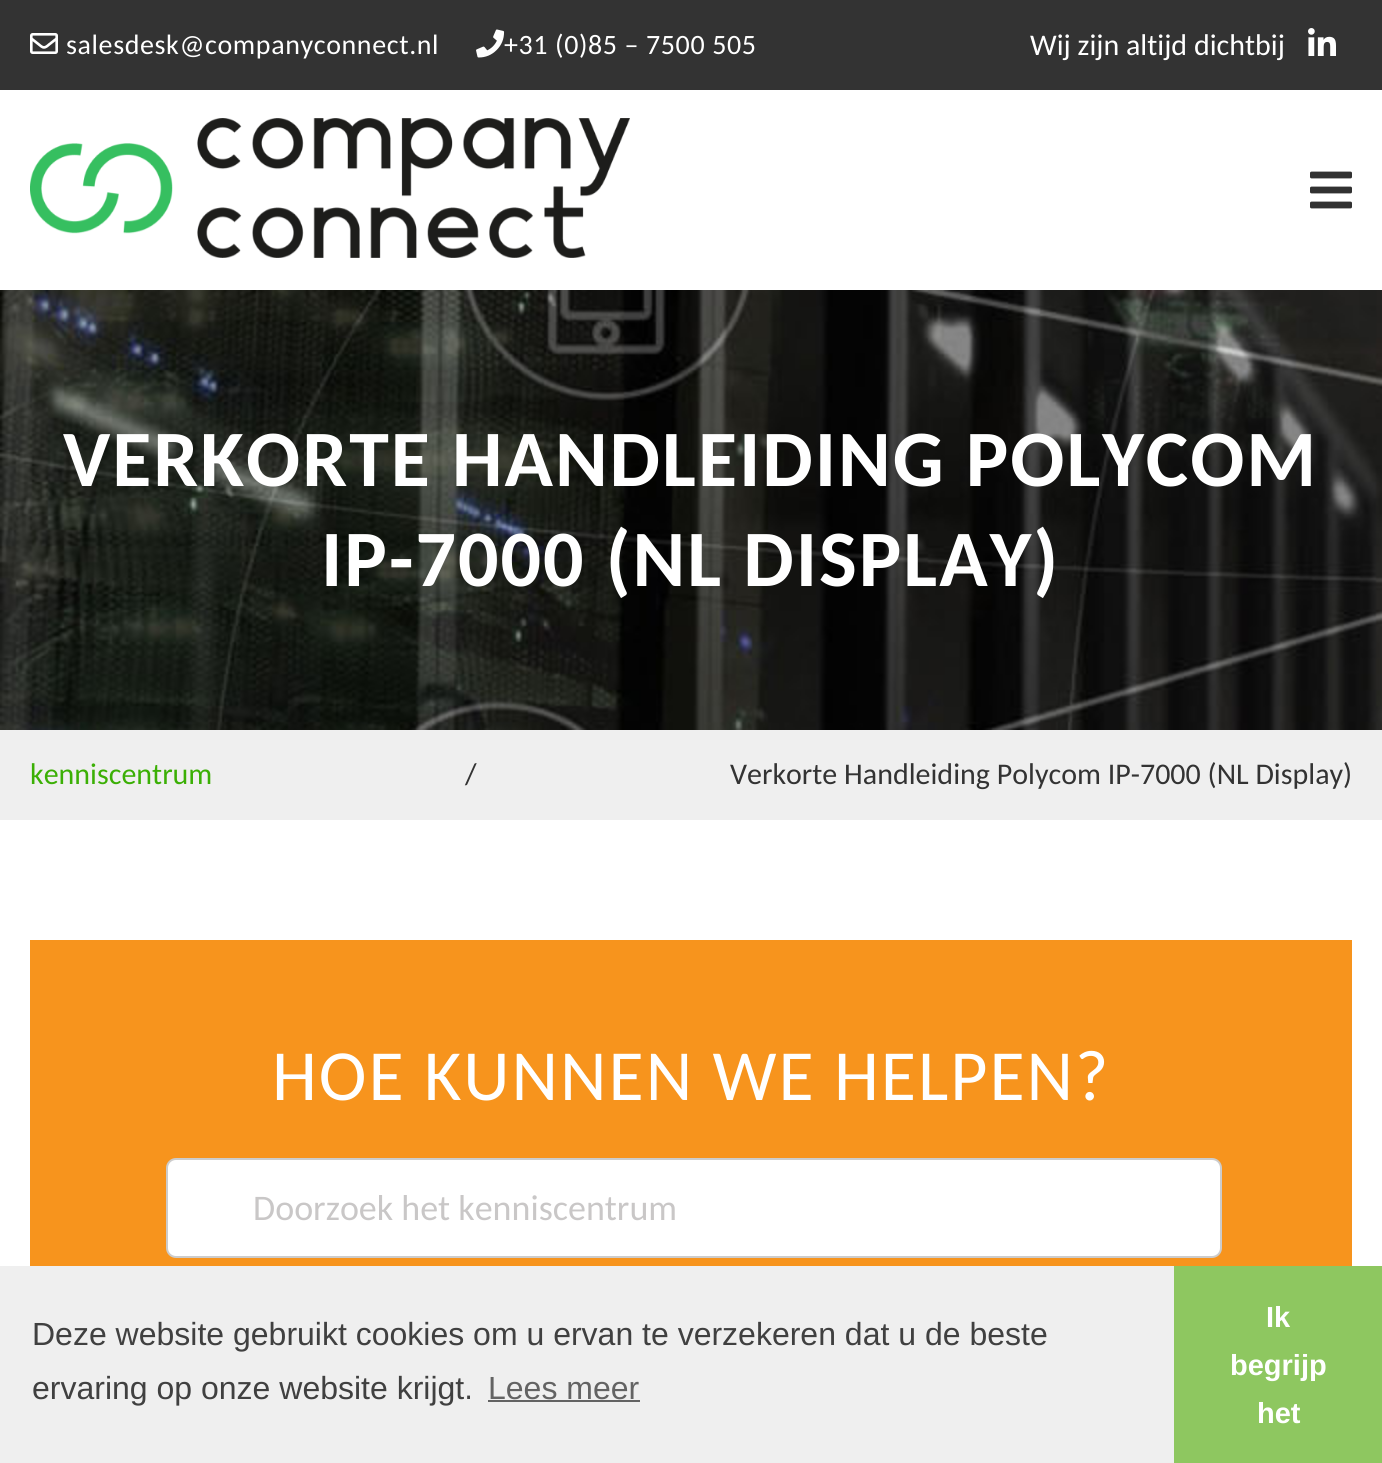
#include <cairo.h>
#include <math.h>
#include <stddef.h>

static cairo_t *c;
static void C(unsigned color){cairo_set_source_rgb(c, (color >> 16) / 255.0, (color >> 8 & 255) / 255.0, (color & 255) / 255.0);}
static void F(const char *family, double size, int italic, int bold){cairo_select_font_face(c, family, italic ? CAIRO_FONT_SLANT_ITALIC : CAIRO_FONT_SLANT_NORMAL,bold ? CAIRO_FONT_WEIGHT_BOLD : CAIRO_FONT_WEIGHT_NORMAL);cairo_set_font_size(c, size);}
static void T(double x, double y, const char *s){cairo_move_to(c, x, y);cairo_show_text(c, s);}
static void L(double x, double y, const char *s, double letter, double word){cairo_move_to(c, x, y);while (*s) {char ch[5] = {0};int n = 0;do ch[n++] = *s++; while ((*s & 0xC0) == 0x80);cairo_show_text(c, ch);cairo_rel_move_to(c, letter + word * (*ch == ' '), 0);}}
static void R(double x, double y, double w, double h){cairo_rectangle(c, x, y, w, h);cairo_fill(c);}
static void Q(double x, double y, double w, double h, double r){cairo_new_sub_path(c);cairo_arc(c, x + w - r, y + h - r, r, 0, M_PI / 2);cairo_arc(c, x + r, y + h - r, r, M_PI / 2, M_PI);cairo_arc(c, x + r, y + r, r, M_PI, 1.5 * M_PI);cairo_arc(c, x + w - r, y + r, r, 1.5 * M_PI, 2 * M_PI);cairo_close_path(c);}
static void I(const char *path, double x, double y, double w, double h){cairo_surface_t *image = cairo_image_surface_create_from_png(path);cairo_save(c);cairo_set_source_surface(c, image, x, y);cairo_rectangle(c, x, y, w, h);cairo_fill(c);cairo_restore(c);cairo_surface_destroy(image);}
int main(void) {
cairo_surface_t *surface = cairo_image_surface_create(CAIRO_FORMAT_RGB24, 1382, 1463);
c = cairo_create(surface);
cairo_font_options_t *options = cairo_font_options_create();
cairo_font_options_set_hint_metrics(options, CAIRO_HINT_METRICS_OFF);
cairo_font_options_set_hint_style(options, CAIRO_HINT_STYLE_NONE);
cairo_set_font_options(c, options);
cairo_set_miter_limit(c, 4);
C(0xffffff);
cairo_paint(c);
C(0x333333);
R(0,0,1382,90);
I("1.png",30,33,28,21);
F("Carlito",28,0,0);
C(0xffffff);
L(66,54,"salesdesk@companyconnect.nl",.6,0);
I("2.png",476,29,29,29);
L(504,54,"+31 (0)85 – 7500 505",.6,0);
F("Carlito",30,0,0);
T(1030,55,"Wij zijn altijd dichtbij");
I("3.png",1308,28,28,28);
I("4.png",30,118,600,140);
I("5.png",1310,171,42,38);
I("6.png",0,290,1382,440);
F("Carlito",80,0,1);
L(63,486,"VERKORTE HANDLEIDING POLYCOM",2,0);
L(321,586,"IP-7000 (NL DISPLAY)",2,0);
C(0xefefef);
R(0,730,1382,90);
F("Carlito",30,0,0);
C(0x3baf05);
T(30,784,"kenniscentrum");
C(0x333333);
T(465,784,"/");
T(730,784,"Verkorte Handleiding Polycom IP-7000 (NL Display)");
C(0xf7941d);
R(30,940,1322,326);
F("Carlito",72,0,0);
C(0xffffff);
L(272,1100,"HOE KUNNEN WE HELPEN?",2,0);
Q(167,1159,1054,98,9);
cairo_fill_preserve(c);
C(0xcccccc);
cairo_stroke(c);
F("Carlito",36,0,0);
C(0xc9c7c7);
T(253,1220,"Doorzoek het kenniscentrum");
C(0xefefef);
R(0,1266,1174,197);
F("Liberation Sans",32,0,0);
C(0x404040);
T(32,1345,"Deze website gebruikt cookies om u ervan te verzekeren dat u de beste");
T(32,1399,"ervaring op onze website krijgt.");
C(0x636363);
T(488,1399,"Lees meer");
R(488,1400,152,2);
C(0x8ec760);
R(1174,1266,208,197);
F("Liberation Sans",29,0,1);
C(0xffffff);
T(1266,1327,"Ik");
T(1230,1375,"begrijp");
T(1257,1423,"het");
cairo_surface_write_to_png(surface, "o.png");
cairo_font_options_destroy(options);
cairo_destroy(c);
cairo_surface_destroy(surface);
return 0;
}
